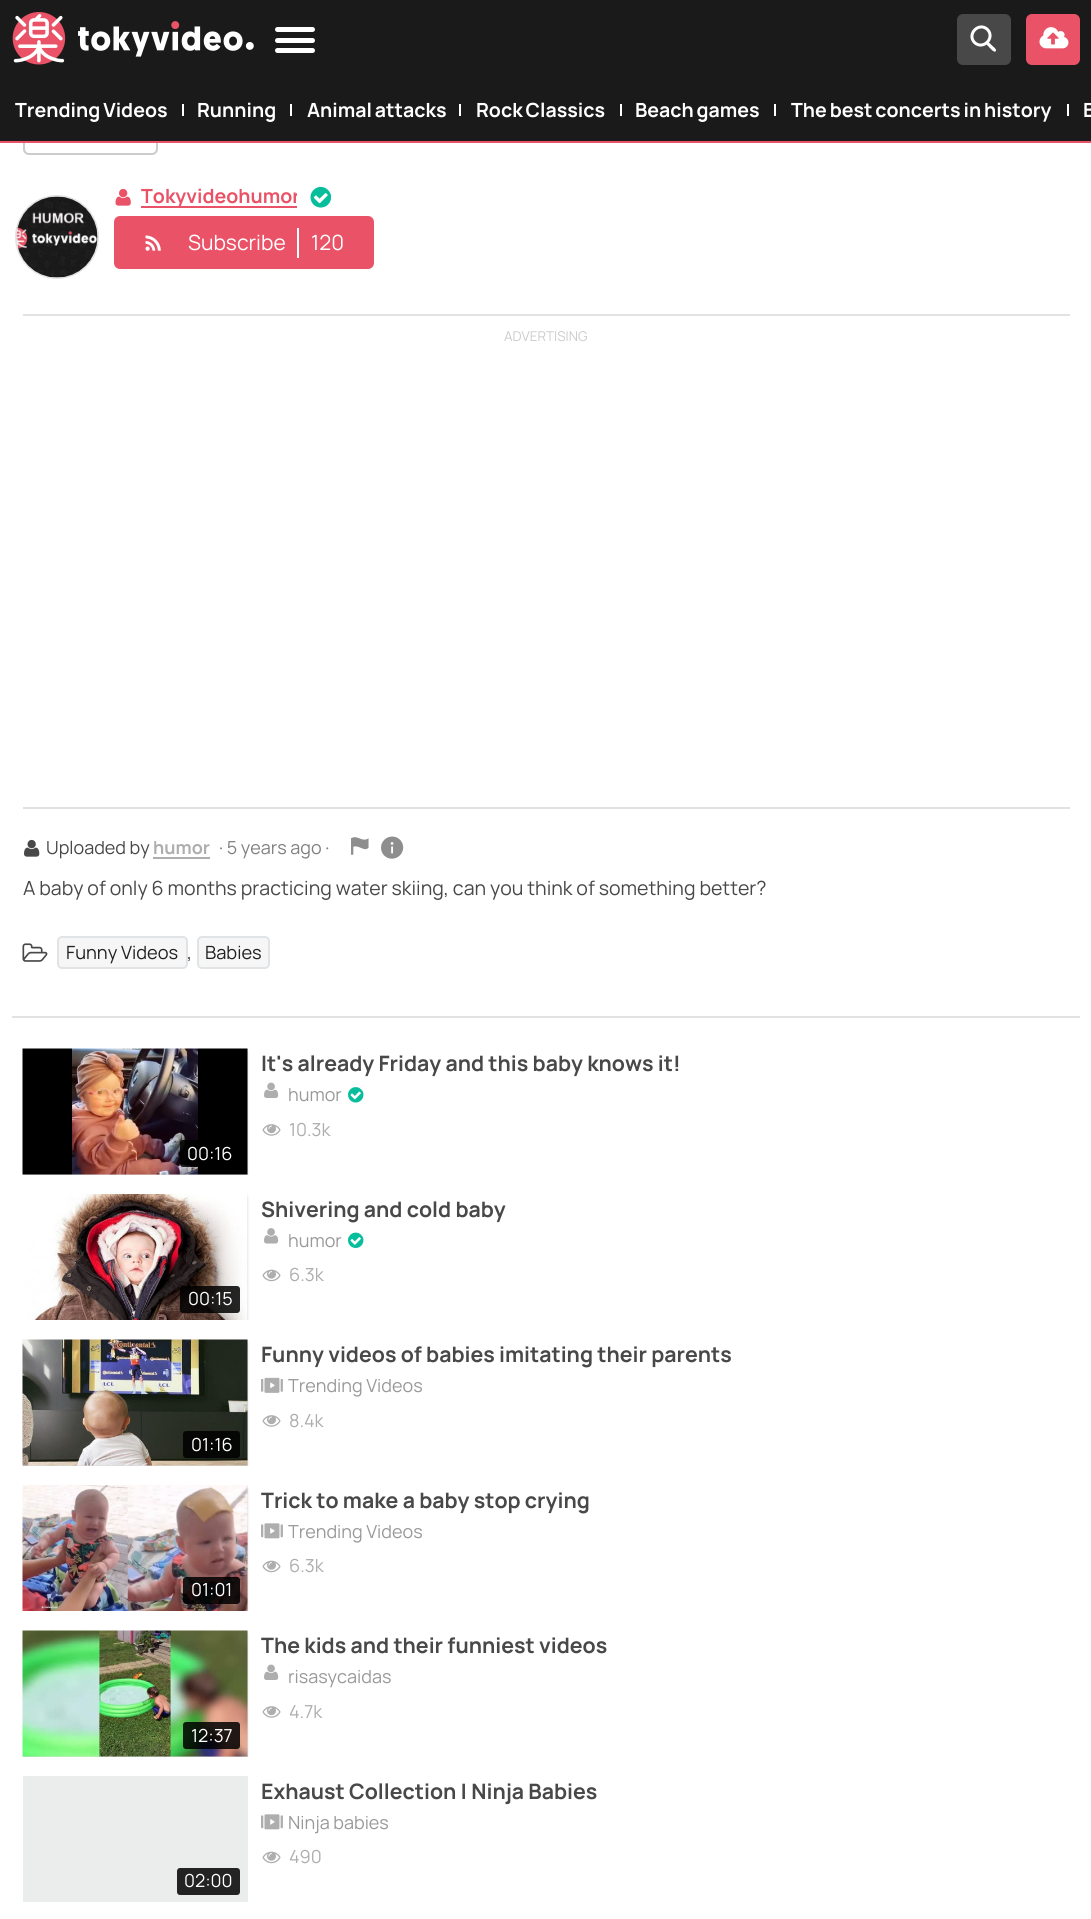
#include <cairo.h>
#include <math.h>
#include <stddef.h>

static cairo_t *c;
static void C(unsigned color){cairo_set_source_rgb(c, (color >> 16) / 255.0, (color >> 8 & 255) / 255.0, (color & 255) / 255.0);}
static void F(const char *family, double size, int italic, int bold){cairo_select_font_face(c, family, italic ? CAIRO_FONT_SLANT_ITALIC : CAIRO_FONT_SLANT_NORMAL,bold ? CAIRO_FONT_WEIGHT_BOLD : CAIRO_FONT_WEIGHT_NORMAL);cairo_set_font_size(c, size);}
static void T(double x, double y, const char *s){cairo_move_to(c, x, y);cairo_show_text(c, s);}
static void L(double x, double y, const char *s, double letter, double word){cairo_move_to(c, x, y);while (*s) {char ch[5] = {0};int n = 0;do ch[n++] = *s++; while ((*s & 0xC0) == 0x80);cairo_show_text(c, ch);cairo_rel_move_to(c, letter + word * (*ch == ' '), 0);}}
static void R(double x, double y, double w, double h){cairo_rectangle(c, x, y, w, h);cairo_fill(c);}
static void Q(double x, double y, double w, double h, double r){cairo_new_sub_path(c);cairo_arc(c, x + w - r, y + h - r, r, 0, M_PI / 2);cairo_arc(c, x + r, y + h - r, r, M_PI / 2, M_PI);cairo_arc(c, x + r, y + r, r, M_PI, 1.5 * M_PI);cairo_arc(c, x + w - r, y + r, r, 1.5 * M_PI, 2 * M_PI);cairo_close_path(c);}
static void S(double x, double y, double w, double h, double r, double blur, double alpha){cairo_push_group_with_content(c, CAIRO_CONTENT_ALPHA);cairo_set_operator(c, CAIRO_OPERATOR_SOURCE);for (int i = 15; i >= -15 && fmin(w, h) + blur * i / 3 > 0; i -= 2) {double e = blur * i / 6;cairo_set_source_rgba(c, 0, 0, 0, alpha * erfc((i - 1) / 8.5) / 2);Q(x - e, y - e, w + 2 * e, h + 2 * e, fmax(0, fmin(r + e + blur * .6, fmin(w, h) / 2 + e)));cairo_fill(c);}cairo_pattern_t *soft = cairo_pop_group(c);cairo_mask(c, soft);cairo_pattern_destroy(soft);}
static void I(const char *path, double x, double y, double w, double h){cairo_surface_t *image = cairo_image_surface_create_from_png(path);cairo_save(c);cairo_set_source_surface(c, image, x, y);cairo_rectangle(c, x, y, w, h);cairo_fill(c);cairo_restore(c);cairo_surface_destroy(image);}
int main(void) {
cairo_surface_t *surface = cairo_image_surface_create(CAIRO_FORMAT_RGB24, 1091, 1919);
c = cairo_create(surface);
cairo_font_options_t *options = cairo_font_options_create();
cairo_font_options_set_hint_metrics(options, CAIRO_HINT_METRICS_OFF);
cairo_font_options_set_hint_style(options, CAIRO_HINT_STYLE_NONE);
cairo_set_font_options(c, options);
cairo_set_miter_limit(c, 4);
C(0xffffff);
cairo_paint(c);
Q(24,105,133,49,5);
C(0xcccccc);
cairo_stroke(c);
C(0x1b1a1a);
R(0,0,1091,141);
I("1.png",12,12,242,53);
C(0xffffff);
Q(275,38,40,5,2.5);
cairo_fill(c);
Q(275,27,40,5,2.5);
cairo_fill(c);
Q(275,48,40,5,2.5);
cairo_fill(c);
C(0x494848);
Q(957,14,54,51,6);
cairo_fill(c);
C(0xffffff);
cairo_new_path(c);
cairo_move_to(c,988,41.5);
cairo_line_to(c,992,45.5);
cairo_curve_to(c,993,46.5,996.5,49,996,50.5);
cairo_curve_to(c,995,54.5,989,47,988.5,46.5);
cairo_line_to(c,985.5,43.5);
cairo_curve_to(c,985,42,987,40.5,988,41.5);
cairo_close_path(c);
cairo_fill(c);
cairo_new_path(c);
cairo_move_to(c,987.5,29.5);
cairo_curve_to(c,995.5,38,983,50.5,974.5,42.5);
cairo_curve_to(c,966.5,34,979,21.5,987.5,29.5);
cairo_close_path(c);
cairo_set_line_width(c,3);
cairo_stroke(c);
C(0xea5367);
Q(1026,14,54,51,6);
cairo_fill(c);
I("2.png",1039,27,30,22);
R(0,141,1091,2);
F("Manrope",19.5,0,1);
C(0xffffff);
L(15,117,"Trending Videos",0,-1);
R(182,104,2,12);
T(197,117,"Running");
R(290,104,2,12);
L(307,117,"Animal attacks",0,-1);
R(459,104,2,12);
L(476,117,"Rock Classics",0,-1);
R(620,104,2,12);
L(635,117,"Beach games",0,-1);
R(774,104,2,12);
L(791,117,"The best concerts in history",0,-1);
R(1067,104,2,12);
L(1083,117,"B",0,-1);
cairo_new_path(c);
cairo_arc(c,57,237,41,0,2 * M_PI);
C(0xe2e2e2);
cairo_set_line_width(c,2);
cairo_stroke(c);
I("3.png",16,196,82,82);
I("4.png",115,188,16,18);
C(0xea5367);
R(141,206,156,2);
cairo_save(c);
cairo_rectangle(c,141,182,156,30);
cairo_clip(c);
T(141,203,"Tokyvideohumor");
cairo_restore(c);
I("5.png",310,186,22,22);
Q(114,216,260,53,6);
cairo_fill(c);
I("6.png",145,235,16,16);
F("Manrope",21,0,0);
C(0xffffff);
T(188,250,"Subscribe");
R(297,228,2,30);
T(311,250,"120");
C(0xe2e2e2);
R(23,314,1047,2);
F("Manrope",13.5,0,0);
C(0xcccccc);
T(504,341,"ADVERTISING");
C(0xe2e2e2);
R(23,807,1047,2);
I("7.png",24,839,16,18);
F("Manrope",18,0,0);
C(0x484848);
T(46,854,"Uploaded by");
F("Manrope",18,0,1);
C(0xaeaeae);
T(153,854,"humor");
R(153,857,57,2);
F("Manrope",18,0,0);
C(0x828080);
T(219,854,"· 5 years ago ·");
I("8.png",351,837,18,18);
I("9.png",381,836,23,23);
F("Manrope",19.5,0,0);
C(0x484848);
T(23,895,"A baby of only 6 months practicing water skiing, can you think of something better?");
I("10.png",22,943,26,19);
C(0xf6f6f6);
Q(58,937,129,31,4);
cairo_fill_preserve(c);
C(0xe1e4e6);
cairo_stroke(c);
F("Manrope",18.25,0,0);
C(0x212121);
T(66,959,"Funny Videos");
F("Manrope",19.5,0,0);
C(0x484848);
T(187,959,",");
C(0xf6f6f6);
Q(198,937,71,31,4);
cairo_fill_preserve(c);
C(0xe1e4e6);
cairo_stroke(c);
F("Manrope",18.25,0,0);
C(0x212121);
T(205,959,"Babies");
C(0xe2e2e2);
R(12,1016,1068,2);
F("Manrope",21.25,0,1);
C(0x484848);
T(261,1071,"It's already Friday and this baby knows it!");
I("11.png",264,1082,15,16);
F("Manrope",18,0,0);
C(0x999999);
T(288,1101,"humor");
I("12.png",348,1087,16,16);
I("13.png",262,1124,19,12);
C(0xaeaeae);
T(289,1136,"10.3k");
C(0xebecec);
R(23,1049,225,126);
cairo_save(c);
cairo_rectangle(c,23,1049,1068,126);
cairo_clip(c);
C(0x878787);
S(23,1052,225,126,0,1,.18);
cairo_restore(c);
I("14.png",22,1048,226,127);
cairo_set_source_rgba(c,0,0,0,0.85);
Q(180,1140,60,27,3);
cairo_fill(c);
C(0xffffff);
T(187,1160,"00:16");
F("Manrope",21.25,0,1);
C(0x484848);
T(261,1217,"Shivering and cold baby");
I("15.png",264,1228,15,16);
F("Manrope",18,0,0);
C(0x999999);
T(288,1247,"humor");
I("16.png",348,1232,16,16);
I("17.png",262,1269,19,13);
C(0xaeaeae);
T(289,1281,"6.3k");
C(0xebecec);
R(247,1194,1,126);
cairo_save(c);
cairo_rectangle(c,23,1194,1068,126);
cairo_clip(c);
C(0x878787);
S(23,1197,225,126,0,1,.18);
cairo_restore(c);
I("18.png",23,1194,225,126);
cairo_set_source_rgba(c,0,0,0,0.85);
Q(180,1286,60,27,3);
cairo_fill(c);
C(0xffffff);
T(188,1305,"00:15");
F("Manrope",21.25,0,1);
C(0x484848);
T(261,1362,"Funny videos of babies imitating their parents");
I("19.png",261,1377,22,16);
F("Manrope",18,0,0);
C(0x999999);
T(288,1392,"Trending Videos");
I("13.png",262,1415,19,12);
C(0xaeaeae);
T(289,1427,"8.4k");
C(0xebecec);
R(23,1340,225,126);
cairo_save(c);
cairo_rectangle(c,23,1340,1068,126);
cairo_clip(c);
C(0x878787);
S(23,1343,225,126,0,1,.18);
cairo_restore(c);
I("20.png",22,1339,226,127);
cairo_set_source_rgba(c,0,0,0,0.85);
Q(183,1431,57,27,3);
cairo_fill(c);
C(0xffffff);
T(191,1451,"01:16");
F("Manrope",21.25,0,1);
C(0x484848);
T(261,1508,"Trick to make a baby stop crying");
I("21.png",261,1523,22,16);
F("Manrope",18,0,0);
C(0x999999);
T(288,1538,"Trending Videos");
I("17.png",262,1560,19,13);
C(0xaeaeae);
T(289,1572,"6.3k");
C(0xebecec);
R(247,1485,1,126);
cairo_save(c);
cairo_rectangle(c,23,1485,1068,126);
cairo_clip(c);
C(0x878787);
S(23,1488,225,126,0,1,.18);
cairo_restore(c);
I("22.png",22,1485,226,126);
cairo_set_source_rgba(c,0,0,0,0.85);
Q(183,1577,57,27,3);
cairo_fill(c);
C(0xffffff);
T(191,1596,"01:01");
F("Manrope",21.25,0,1);
C(0x484848);
T(261,1653,"The kids and their funniest videos");
I("11.png",264,1664,15,16);
F("Manrope",18,0,0);
C(0x999999);
T(288,1683,"risasycaidas");
I("13.png",262,1706,19,12);
C(0xaeaeae);
T(289,1718,"4.7k");
C(0xebecec);
R(23,1631,225,126);
cairo_save(c);
cairo_rectangle(c,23,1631,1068,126);
cairo_clip(c);
C(0x878787);
S(23,1634,225,126,0,1,.18);
cairo_restore(c);
I("23.png",22,1630,226,127);
cairo_set_source_rgba(c,0,0,0,0.85);
Q(183,1722,57,27,3);
cairo_fill(c);
C(0xffffff);
T(191,1742,"12:37");
F("Manrope",21.25,0,1);
C(0x484848);
T(261,1799,"Exhaust Collection | Ninja Babies");
I("21.png",261,1814,22,16);
F("Manrope",18,0,0);
C(0x999999);
T(288,1829,"Ninja babies");
I("17.png",262,1851,19,13);
C(0xaeaeae);
T(289,1863,"490");
C(0xebecec);
R(23,1776,225,126);
C(0x232323);
Q(177,1868,63,27,3);
cairo_fill(c);
C(0xffffff);
T(184,1887,"02:00");
cairo_surface_write_to_png(surface, "o.png");
cairo_font_options_destroy(options);
cairo_destroy(c);
cairo_surface_destroy(surface);
return 0;
}
